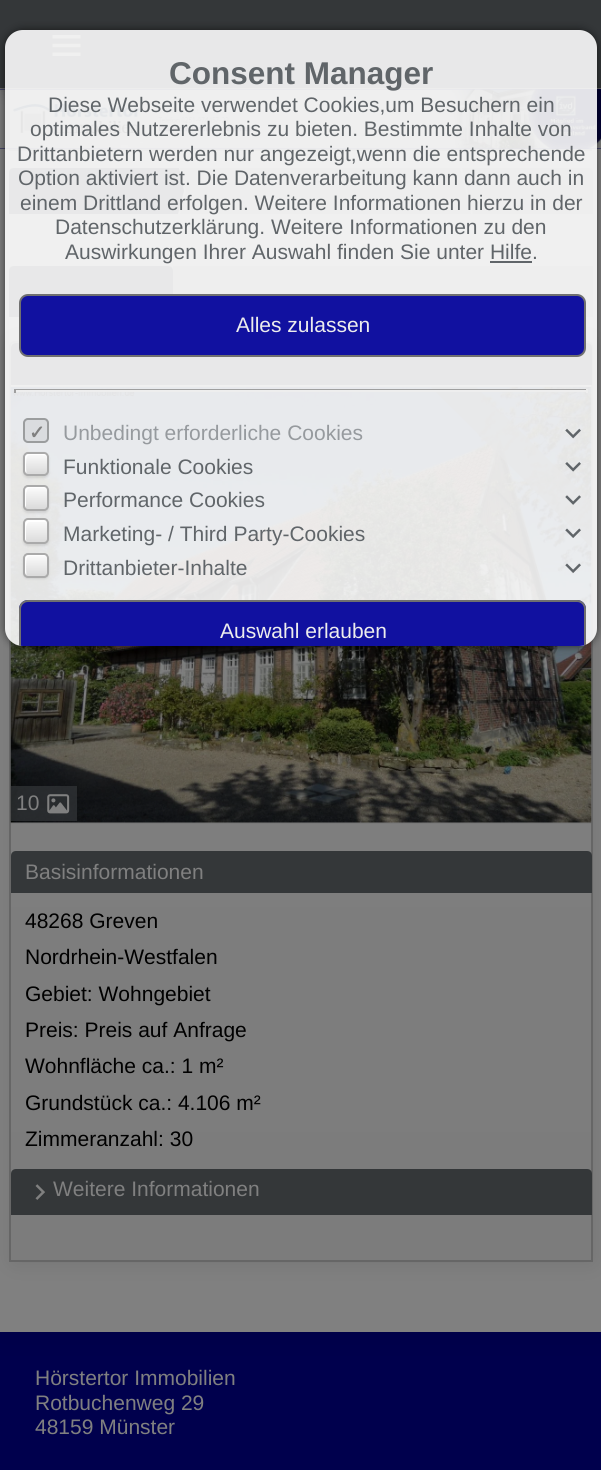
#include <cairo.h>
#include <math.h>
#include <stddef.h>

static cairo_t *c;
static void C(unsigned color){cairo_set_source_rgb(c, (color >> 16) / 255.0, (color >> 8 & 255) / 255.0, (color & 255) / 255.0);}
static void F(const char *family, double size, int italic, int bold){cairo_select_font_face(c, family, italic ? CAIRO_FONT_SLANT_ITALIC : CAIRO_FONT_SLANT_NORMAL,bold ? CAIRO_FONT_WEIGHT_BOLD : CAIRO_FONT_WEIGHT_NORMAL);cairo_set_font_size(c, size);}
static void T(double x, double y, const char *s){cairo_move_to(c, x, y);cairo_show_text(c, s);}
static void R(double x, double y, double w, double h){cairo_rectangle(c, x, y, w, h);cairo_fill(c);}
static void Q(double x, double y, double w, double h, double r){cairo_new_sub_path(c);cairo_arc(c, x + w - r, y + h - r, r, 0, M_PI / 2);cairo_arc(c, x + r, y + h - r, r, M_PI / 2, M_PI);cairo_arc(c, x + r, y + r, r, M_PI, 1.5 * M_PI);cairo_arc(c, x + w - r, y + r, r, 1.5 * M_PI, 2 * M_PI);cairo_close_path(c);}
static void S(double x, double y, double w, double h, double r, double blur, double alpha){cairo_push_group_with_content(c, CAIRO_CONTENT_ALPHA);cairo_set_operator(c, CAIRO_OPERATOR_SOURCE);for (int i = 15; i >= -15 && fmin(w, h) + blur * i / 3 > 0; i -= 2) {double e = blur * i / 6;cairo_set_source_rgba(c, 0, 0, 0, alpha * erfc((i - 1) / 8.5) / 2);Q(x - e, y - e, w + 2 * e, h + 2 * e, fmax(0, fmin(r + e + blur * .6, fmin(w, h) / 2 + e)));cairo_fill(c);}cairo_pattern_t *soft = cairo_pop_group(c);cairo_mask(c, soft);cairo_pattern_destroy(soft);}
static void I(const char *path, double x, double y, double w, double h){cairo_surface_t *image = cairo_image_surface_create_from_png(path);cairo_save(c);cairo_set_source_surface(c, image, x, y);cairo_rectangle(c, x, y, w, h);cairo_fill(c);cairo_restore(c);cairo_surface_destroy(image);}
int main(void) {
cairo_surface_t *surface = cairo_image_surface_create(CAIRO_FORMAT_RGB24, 601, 1470);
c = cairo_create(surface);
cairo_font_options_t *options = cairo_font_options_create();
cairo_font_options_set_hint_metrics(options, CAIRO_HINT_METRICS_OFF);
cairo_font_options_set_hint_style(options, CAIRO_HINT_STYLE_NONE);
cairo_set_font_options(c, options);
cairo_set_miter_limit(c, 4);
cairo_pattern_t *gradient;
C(0x727273);
cairo_paint(c);
C(0x00004d);
R(0,1332,601,138);
C(0x000000);
S(0,149,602,1183,0,16,.14);
C(0x00004d);
R(0,89,601,60);
I("7.png",0,89,601,60);
C(0x000000);
S(0,0,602,88,0,9,.2);
C(0x343739);
R(0,0,601,88);
I("6.png",52,35,29,21);
C(0x808080);
R(0,149,601,1183);
C(0x666666);
R(9,149,583,2);
C(0x727273);
cairo_new_path(c);
cairo_move_to(c,14,168);
cairo_line_to(c,588,168);
cairo_curve_to(c,591,168,593,170,593,173);
cairo_line_to(c,593,214);
cairo_line_to(c,9,214);
cairo_line_to(c,9,173);
cairo_curve_to(c,9,170,11,168,14,168);
cairo_close_path(c);
cairo_fill(c);
C(0x343739);
cairo_new_path(c);
cairo_move_to(c,14,168);
cairo_line_to(c,163,168);
cairo_line_to(c,163,214);
cairo_line_to(c,9,214);
cairo_line_to(c,9,173);
cairo_curve_to(c,9,170,11,168,14,168);
cairo_close_path(c);
cairo_fill(c);
C(0x808080);
cairo_new_path(c);
cairo_move_to(c,180,168);
cairo_line_to(c,186,191);
cairo_line_to(c,180,214);
cairo_line_to(c,164,214);
cairo_line_to(c,164,168);
cairo_close_path(c);
cairo_fill(c);
C(0x343739);
cairo_new_path(c);
cairo_move_to(c,179,168);
cairo_line_to(c,184,191);
cairo_line_to(c,178,214);
cairo_line_to(c,163,214);
cairo_line_to(c,163,168);
cairo_close_path(c);
cairo_fill(c);
C(0x808080);
cairo_new_path(c);
cairo_move_to(c,462,168);
cairo_line_to(c,473,214);
cairo_line_to(c,457,214);
cairo_line_to(c,457,168);
cairo_close_path(c);
cairo_fill(c);
C(0x727273);
cairo_new_path(c);
cairo_move_to(c,460,168);
cairo_line_to(c,471,214);
cairo_line_to(c,455,214);
cairo_line_to(c,455,168);
cairo_close_path(c);
cairo_fill(c);
C(0x151515);
S(11,343,584,921,5,9,.1);
C(0x343739);
cairo_new_path(c);
cairo_move_to(c,14,266);
cairo_line_to(c,168,266);
cairo_curve_to(c,171,266,173,268,173,271);
cairo_line_to(c,173,317);
cairo_line_to(c,9,317);
cairo_line_to(c,9,271);
cairo_curve_to(c,9,268,11,266,14,266);
cairo_close_path(c);
cairo_fill(c);
C(0x727273);
R(173,266,420,51);
cairo_save(c);
cairo_new_path(c);
cairo_move_to(c,14,341);
cairo_line_to(c,588,341);
cairo_curve_to(c,591,341,593,343,593,346);
cairo_line_to(c,593,1262);
cairo_line_to(c,9,1262);
cairo_line_to(c,9,346);
cairo_curve_to(c,9,343,11,341,14,341);
cairo_close_path(c);
cairo_clip(c);
gradient = cairo_pattern_create_linear(301,343,301,1260);
cairo_pattern_add_color_stop_rgba(gradient,0,0.502,0.502,0.502,1);
cairo_pattern_add_color_stop_rgba(gradient,1,0.486,0.486,0.486,1);
cairo_set_source(c,gradient);
cairo_pattern_destroy(gradient);
R(9,343,584,917);
cairo_restore(c);
cairo_new_path(c);
cairo_move_to(c,14,342);
cairo_line_to(c,588,342);
cairo_curve_to(c,590,342,592,344,592,346);
cairo_line_to(c,592,1261);
cairo_line_to(c,10,1261);
cairo_line_to(c,10,346);
cairo_curve_to(c,10,344,12,342,14,342);
cairo_close_path(c);
C(0x666666);
cairo_stroke(c);
C(0x343739);
cairo_new_path(c);
cairo_move_to(c,16,343);
cairo_line_to(c,417,343);
cairo_curve_to(c,420,343,422,345,422,348);
cairo_line_to(c,422,385);
cairo_line_to(c,11,385);
cairo_line_to(c,11,348);
cairo_curve_to(c,11,345,13,343,16,343);
cairo_close_path(c);
cairo_fill(c);
cairo_new_path(c);
cairo_move_to(c,427,343);
cairo_line_to(c,587,343);
cairo_curve_to(c,590,343,592,345,592,348);
cairo_line_to(c,592,385);
cairo_line_to(c,422,385);
cairo_line_to(c,422,348);
cairo_curve_to(c,422,345,424,343,427,343);
cairo_close_path(c);
cairo_fill(c);
gradient = cairo_pattern_create_linear(301,387,301,824);
cairo_pattern_add_color_stop_rgba(gradient,0,0.431,0.431,0.431,0);
cairo_pattern_add_color_stop_rgba(gradient,1,0.431,0.431,0.431,.25);
cairo_set_source(c,gradient);
cairo_pattern_destroy(gradient);
R(11,630,580,194);
I("8.png",10,386,582,437);
cairo_save(c);
cairo_rectangle(c,11,387,581,437);
cairo_clip(c);
cairo_set_source_rgba(c,0.204,0.216,0.224,0.7);
cairo_new_path(c);
cairo_move_to(c,443,354);
cairo_line_to(c,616,527);
cairo_line_to(c,593,549);
cairo_line_to(c,420,376);
cairo_close_path(c);
cairo_fill(c);
cairo_restore(c);
cairo_save(c);
cairo_set_fill_rule(c,CAIRO_FILL_RULE_EVEN_ODD);
cairo_new_path(c);
cairo_move_to(c,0,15);
cairo_line_to(c,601,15);
cairo_line_to(c,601,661);
cairo_line_to(c,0,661);
cairo_close_path(c);
cairo_move_to(c,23,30);
cairo_line_to(c,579,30);
cairo_curve_to(c,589,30,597,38,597,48);
cairo_line_to(c,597,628);
cairo_curve_to(c,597,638,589,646,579,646);
cairo_line_to(c,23,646);
cairo_curve_to(c,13,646,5,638,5,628);
cairo_line_to(c,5,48);
cairo_curve_to(c,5,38,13,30,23,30);
cairo_close_path(c);
cairo_clip(c);
C(0x000000);
S(5,30,592,616,18,4.5,.6);
cairo_restore(c);
cairo_set_source_rgba(c,0.988,0.988,0.988,0.9);
Q(5,30,592,616,18);
cairo_fill(c);
F("Liberation Sans",31.5,0,1);
C(0x606569);
T(169,84,"Consent Manager");
F("Liberation Sans",21,0,0);
T(48,112,"Diese Webseite verwendet Cookies,um Besuchern ein");
T(30,136,"optimales Nutzererlebnis zu bieten. Bestimmte Inhalte von");
T(17,161,"Drittanbietern werden nur angezeigt,wenn die entsprechende");
T(18,185,"Option aktiviert ist. Die Datenverarbeitung kann dann auch in");
T(20,210,"einem Drittland erfolgen. Weitere Informationen hierzu in der");
T(55,234,"Datenschutzerklärung. Weitere Informationen zu den");
T(65,259,"Auswirkungen Ihrer Auswahl finden Sie unter Hilfe.");
R(490,261,42,2);
C(0x1111a0);
Q(20,295,565,61,8);
cairo_fill_preserve(c);
C(0x707070);
cairo_stroke(c);
C(0xededed);
T(236,332,"Alles zulassen");
C(0x9f9f9f);
R(14,389,574,1);
C(0xeeeeee);
R(586,389,2,4);
R(14,390,574,2);
C(0x9f9f9f);
R(14,389,2,4);
C(0xdadcdf);
Q(23,418,26,25,5);
cairo_fill(c);
Q(24,419,24,23,4);
cairo_set_source_rgba(c,0.365,0.369,0.373,0.5);
cairo_stroke(c);
F("DejaVu Sans",19,0,1);
C(0x808080);
T(29,439,"✓");
F("Liberation Sans",21,0,0);
C(0x969a9e);
T(63,440,"Unbedingt erforderliche Cookies");
I("1.png",565,428,16,11);
C(0x000000);
S(23,453,26,25,5,1,.1);
cairo_save(c);
Q(23,452,26,24,5);
cairo_clip(c);
gradient = cairo_pattern_create_linear(36,453,36,474);
cairo_pattern_add_color_stop_rgba(gradient,0,0.988,0.988,0.988,1);
cairo_pattern_add_color_stop_rgba(gradient,1,0.855,0.855,0.855,1);
cairo_set_source(c,gradient);
cairo_pattern_destroy(gradient);
R(23,453,26,21);
cairo_restore(c);
C(0xffffff);
cairo_new_path(c);
cairo_move_to(c,30,455);
cairo_line_to(c,41,455);
cairo_line_to(c,46.5,455.5);
cairo_curve_to(c,46,454,44.5,453,43,453);
cairo_line_to(c,29,453);
cairo_curve_to(c,27,453,25,455,25,457);
cairo_line_to(c,25,470);
cairo_curve_to(c,25,471,25.5,472.5,26.5,473);
cairo_curve_to(c,26,470,25.5,459.5,27,457);
cairo_curve_to(c,27.5,456,28.5,455,30,455);
cairo_close_path(c);
cairo_fill(c);
Q(24,453,24,22,4);
C(0xaaaaaa);
cairo_stroke(c);
C(0x606569);
T(63,474,"Funktionale Cookies");
I("2.png",565,462,16,10);
C(0x000000);
S(23,487,26,26,5,1,.1);
cairo_save(c);
Q(23,485,26,26,5);
cairo_clip(c);
gradient = cairo_pattern_create_linear(36,487,36,509);
cairo_pattern_add_color_stop_rgba(gradient,0,0.988,0.988,0.988,1);
cairo_pattern_add_color_stop_rgba(gradient,1,0.855,0.855,0.855,1);
cairo_set_source(c,gradient);
cairo_pattern_destroy(gradient);
R(23,487,26,22);
cairo_restore(c);
C(0xffffff);
cairo_new_path(c);
cairo_move_to(c,30,488);
cairo_line_to(c,43,488);
cairo_line_to(c,46,488.5);
cairo_curve_to(c,45,487.5,44,487,43,487);
cairo_line_to(c,29,487);
cairo_curve_to(c,27,487,25,489,25,491);
cairo_line_to(c,25,505);
cairo_curve_to(c,25,506,25.5,507,26,507.5);
cairo_line_to(c,26,493.5);
cairo_line_to(c,27,490.5);
cairo_curve_to(c,27.5,489,28.5,488,30,488);
cairo_close_path(c);
cairo_fill(c);
Q(24,486,24,24,4);
C(0xaaaaaa);
cairo_stroke(c);
C(0x606569);
T(63,507,"Performance Cookies");
I("3.png",565,495,16,10);
C(0x000000);
S(23,520,26,26,5,1,.1);
cairo_save(c);
Q(23,518,26,26,5);
cairo_clip(c);
gradient = cairo_pattern_create_linear(36,520,36,543);
cairo_pattern_add_color_stop_rgba(gradient,0,0.988,0.988,0.988,1);
cairo_pattern_add_color_stop_rgba(gradient,1,0.855,0.855,0.855,1);
cairo_set_source(c,gradient);
cairo_pattern_destroy(gradient);
R(23,520,26,23);
cairo_restore(c);
C(0xffffff);
cairo_new_path(c);
cairo_move_to(c,30,522);
cairo_line_to(c,43,522);
cairo_curve_to(c,44.5,522,46,522,46.5,522.5);
cairo_curve_to(c,46,521,44.5,520,43,520);
cairo_line_to(c,29,520);
cairo_curve_to(c,27,520,25,522,25,524);
cairo_line_to(c,25,539);
cairo_curve_to(c,25,540,25.5,541.5,26.5,542);
cairo_line_to(c,26,539.5);
cairo_line_to(c,26,527);
cairo_line_to(c,27,524);
cairo_curve_to(c,27.5,523,28.5,522,30,522);
cairo_close_path(c);
cairo_fill(c);
Q(24,519,24,24,4);
C(0xaaaaaa);
cairo_stroke(c);
C(0x606569);
T(63,541,"Marketing- / Third Party-Cookies");
I("4.png",565,528,16,10);
C(0x000000);
S(23,555,26,24,5,1,.1);
cairo_save(c);
Q(23,553,26,25,5);
cairo_clip(c);
gradient = cairo_pattern_create_linear(36,555,36,576);
cairo_pattern_add_color_stop_rgba(gradient,0,0.988,0.988,0.988,1);
cairo_pattern_add_color_stop_rgba(gradient,1,0.855,0.855,0.855,1);
cairo_set_source(c,gradient);
cairo_pattern_destroy(gradient);
R(23,555,26,21);
cairo_restore(c);
C(0xffffff);
cairo_new_path(c);
cairo_move_to(c,30,556);
cairo_line_to(c,46,556);
cairo_curve_to(c,44,554.5,40.5,555,38.5,555);
cairo_curve_to(c,24,555,25,553.5,25,567.5);
cairo_curve_to(c,25,570,24.5,573.5,26.5,575);
cairo_curve_to(c,26,572.5,25.5,560.5,27,558);
cairo_curve_to(c,27.5,557,28.5,556,30,556);
cairo_close_path(c);
cairo_fill(c);
Q(24,554,24,23,4);
C(0xaaaaaa);
cairo_stroke(c);
C(0x606569);
T(63,575,"Drittanbieter-Inhalte");
I("5.png",565,563,16,10);
cairo_save(c);
Q(5,30,592,616,18);
cairo_clip(c);
C(0x1111a0);
cairo_new_path(c);
cairo_move_to(c,28,600);
cairo_line_to(c,577,600);
cairo_curve_to(c,582,600,586,604,586,609);
cairo_line_to(c,586,646);
cairo_line_to(c,19,646);
cairo_line_to(c,19,609);
cairo_curve_to(c,19,604,23,600,28,600);
cairo_close_path(c);
cairo_fill(c);
cairo_restore(c);
C(0x707070);
cairo_new_path(c);
cairo_move_to(c,28,600);
cairo_curve_to(c,23,600,19,604,19,609);
cairo_line_to(c,19,646);
cairo_line_to(c,21,646);
cairo_line_to(c,21,609);
cairo_curve_to(c,21,605,24,602,28,602);
cairo_line_to(c,577,602);
cairo_curve_to(c,581,602,584,605,584,609);
cairo_line_to(c,584,645);
cairo_line_to(c,586,645);
cairo_line_to(c,586,609);
cairo_curve_to(c,586,604,582,600,577,600);
cairo_close_path(c);
cairo_fill(c);
C(0xededed);
T(220,638,"Auswahl erlauben");
cairo_set_source_rgba(c,0.204,0.216,0.224,0.7);
R(11,786,66,35);
C(0x808080);
T(16,810,"10");
I("9.png",47,794,23,20);
C(0x343739);
cairo_new_path(c);
cairo_move_to(c,16,851);
cairo_line_to(c,587,851);
cairo_curve_to(c,590,851,592,853,592,856);
cairo_line_to(c,592,893);
cairo_line_to(c,11,893);
cairo_line_to(c,11,856);
cairo_curve_to(c,11,853,13,851,16,851);
cairo_close_path(c);
cairo_fill(c);
C(0x808080);
T(25,879,"Basisinformationen");
C(0x000000);
T(25,928,"48268 Greven");
T(25,964,"Nordrhein-Westfalen");
T(25,1001,"Gebiet: Wohngebiet");
T(25,1037,"Preis: Preis auf Anfrage");
T(25,1073,"Wohnfläche ca.: 1 m²");
T(25,1110,"Grundstück ca.: 4.106 m²");
T(25,1146,"Zimmeranzahl: 30");
C(0x343739);
cairo_new_path(c);
cairo_move_to(c,16,1169);
cairo_line_to(c,587,1169);
cairo_curve_to(c,590,1169,592,1171,592,1174);
cairo_line_to(c,592,1215);
cairo_line_to(c,11,1215);
cairo_line_to(c,11,1174);
cairo_curve_to(c,11,1171,13,1169,16,1169);
cairo_close_path(c);
cairo_fill(c);
I("10.png",35,1184,10,16);
C(0x808080);
T(53,1196,"Weitere Informationen");
T(35,1385,"Hörstertor Immobilien");
T(35,1410,"Rotbuchenweg 29");
T(35,1434,"48159 Münster");
cairo_surface_write_to_png(surface, "o.png");
cairo_font_options_destroy(options);
cairo_destroy(c);
cairo_surface_destroy(surface);
return 0;
}
